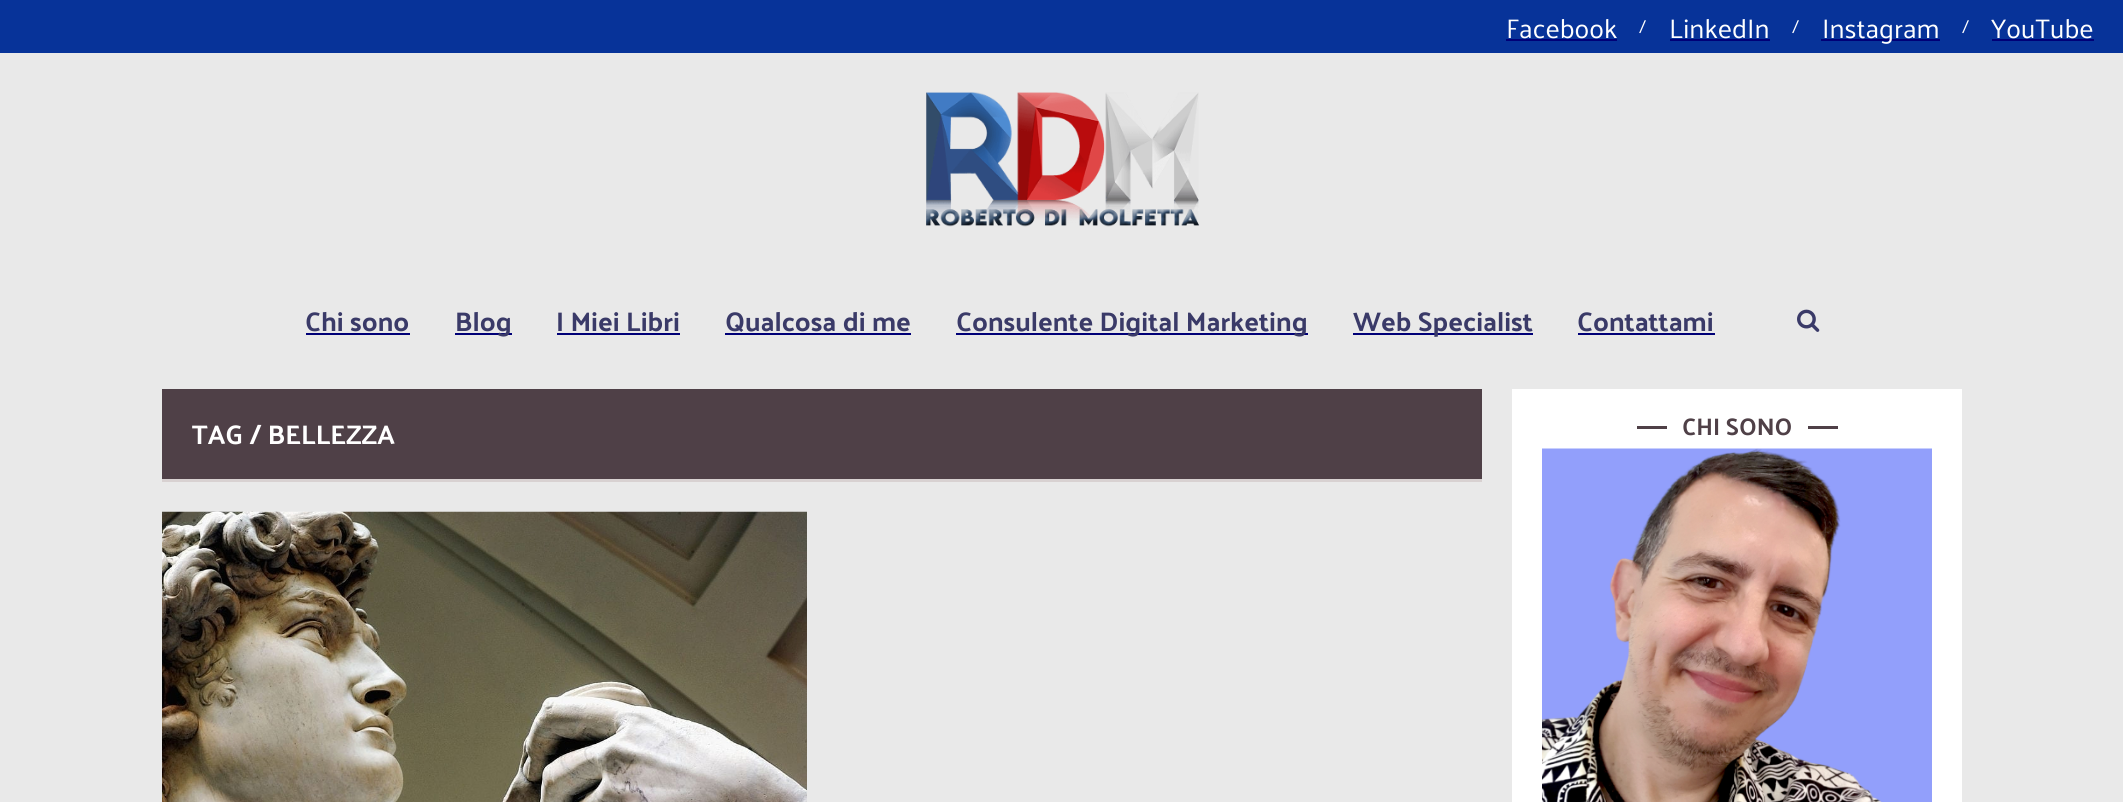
#include <cairo.h>
#include <math.h>
#include <stddef.h>

static cairo_t *c;
static void C(unsigned color){cairo_set_source_rgb(c, (color >> 16) / 255.0, (color >> 8 & 255) / 255.0, (color & 255) / 255.0);}
static void F(const char *family, double size, int italic, int bold){cairo_select_font_face(c, family, italic ? CAIRO_FONT_SLANT_ITALIC : CAIRO_FONT_SLANT_NORMAL,bold ? CAIRO_FONT_WEIGHT_BOLD : CAIRO_FONT_WEIGHT_NORMAL);cairo_set_font_size(c, size);}
static void T(double x, double y, const char *s){cairo_move_to(c, x, y);cairo_show_text(c, s);}
static void R(double x, double y, double w, double h){cairo_rectangle(c, x, y, w, h);cairo_fill(c);}
static void I(const char *path, double x, double y, double w, double h){cairo_surface_t *image = cairo_image_surface_create_from_png(path);cairo_save(c);cairo_set_source_surface(c, image, x, y);cairo_rectangle(c, x, y, w, h);cairo_fill(c);cairo_restore(c);cairo_surface_destroy(image);}
int main(void) {
cairo_surface_t *surface = cairo_image_surface_create(CAIRO_FORMAT_RGB24, 2123, 802);
c = cairo_create(surface);
cairo_font_options_t *options = cairo_font_options_create();
cairo_font_options_set_hint_metrics(options, CAIRO_HINT_METRICS_OFF);
cairo_font_options_set_hint_style(options, CAIRO_HINT_STYLE_NONE);
cairo_set_font_options(c, options);
cairo_set_miter_limit(c, 4);
C(0xe9e9e9);
cairo_paint(c);
C(0x073399);
R(0,0,2123,53);
F("Palanquin",27,0,0);
C(0xffffff);
T(1506,38,"Facebook");
C(0x000077);
R(1506,39,111,2);
F("Palanquin",18,0,0);
C(0xffffff);
T(1639,33,"/");
F("Palanquin",27,0,0);
T(1669,38,"LinkedIn");
C(0x000077);
R(1670,39,100,2);
F("Palanquin",18,0,0);
C(0xffffff);
T(1792,33,"/");
C(0x000077);
R(1821,39,119,2);
F("Palanquin",27,0,0);
C(0xffffff);
T(1822,38,"Instagram");
F("Palanquin",18,0,0);
T(1962,33,"/");
F("Palanquin",27,0,0);
T(1991,38,"YouTube");
C(0x000077);
R(1992,39,102,2);
I("1.png",926,92,274,135);
F("Palanquin",27,0,1);
C(0x3a3a68);
T(305,331,"Chi sono");
C(0x000077);
R(306,333,104,2);
R(455,333,57,2);
C(0x3a3a68);
T(455,331,"Blog");
T(556,331,"I Miei Libri");
C(0x000077);
R(557,333,123,2);
C(0x3a3a68);
T(725,331,"Qualcosa di me");
C(0x000077);
R(725,333,186,2);
R(956,333,352,2);
C(0x3a3a68);
T(956,331,"Consulente Digital Marketing");
C(0x000077);
R(1353,333,180,2);
C(0x3a3a68);
T(1353,331,"Web Specialist");
T(1577,331,"Contattami");
C(0x000077);
R(1578,333,137,2);
I("2.png",1797,309,23,23);
C(0x4f4047);
R(162,389,1320,90);
C(0xffffff);
T(192,444,"TAG / BELLEZZA");
C(0xd8d1d1);
R(162,479,1320,3);
I("3.png",162,511,645,291);
C(0xffffff);
R(1512,389,450,413);
C(0x4f4047);
R(1637,426,30,3);
F("Palanquin",24,0,1);
T(1682,435,"CHI SONO");
R(1808,426,30,3);
I("4.png",1542,448,390,354);
cairo_surface_write_to_png(surface, "o.png");
cairo_font_options_destroy(options);
cairo_destroy(c);
cairo_surface_destroy(surface);
return 0;
}
